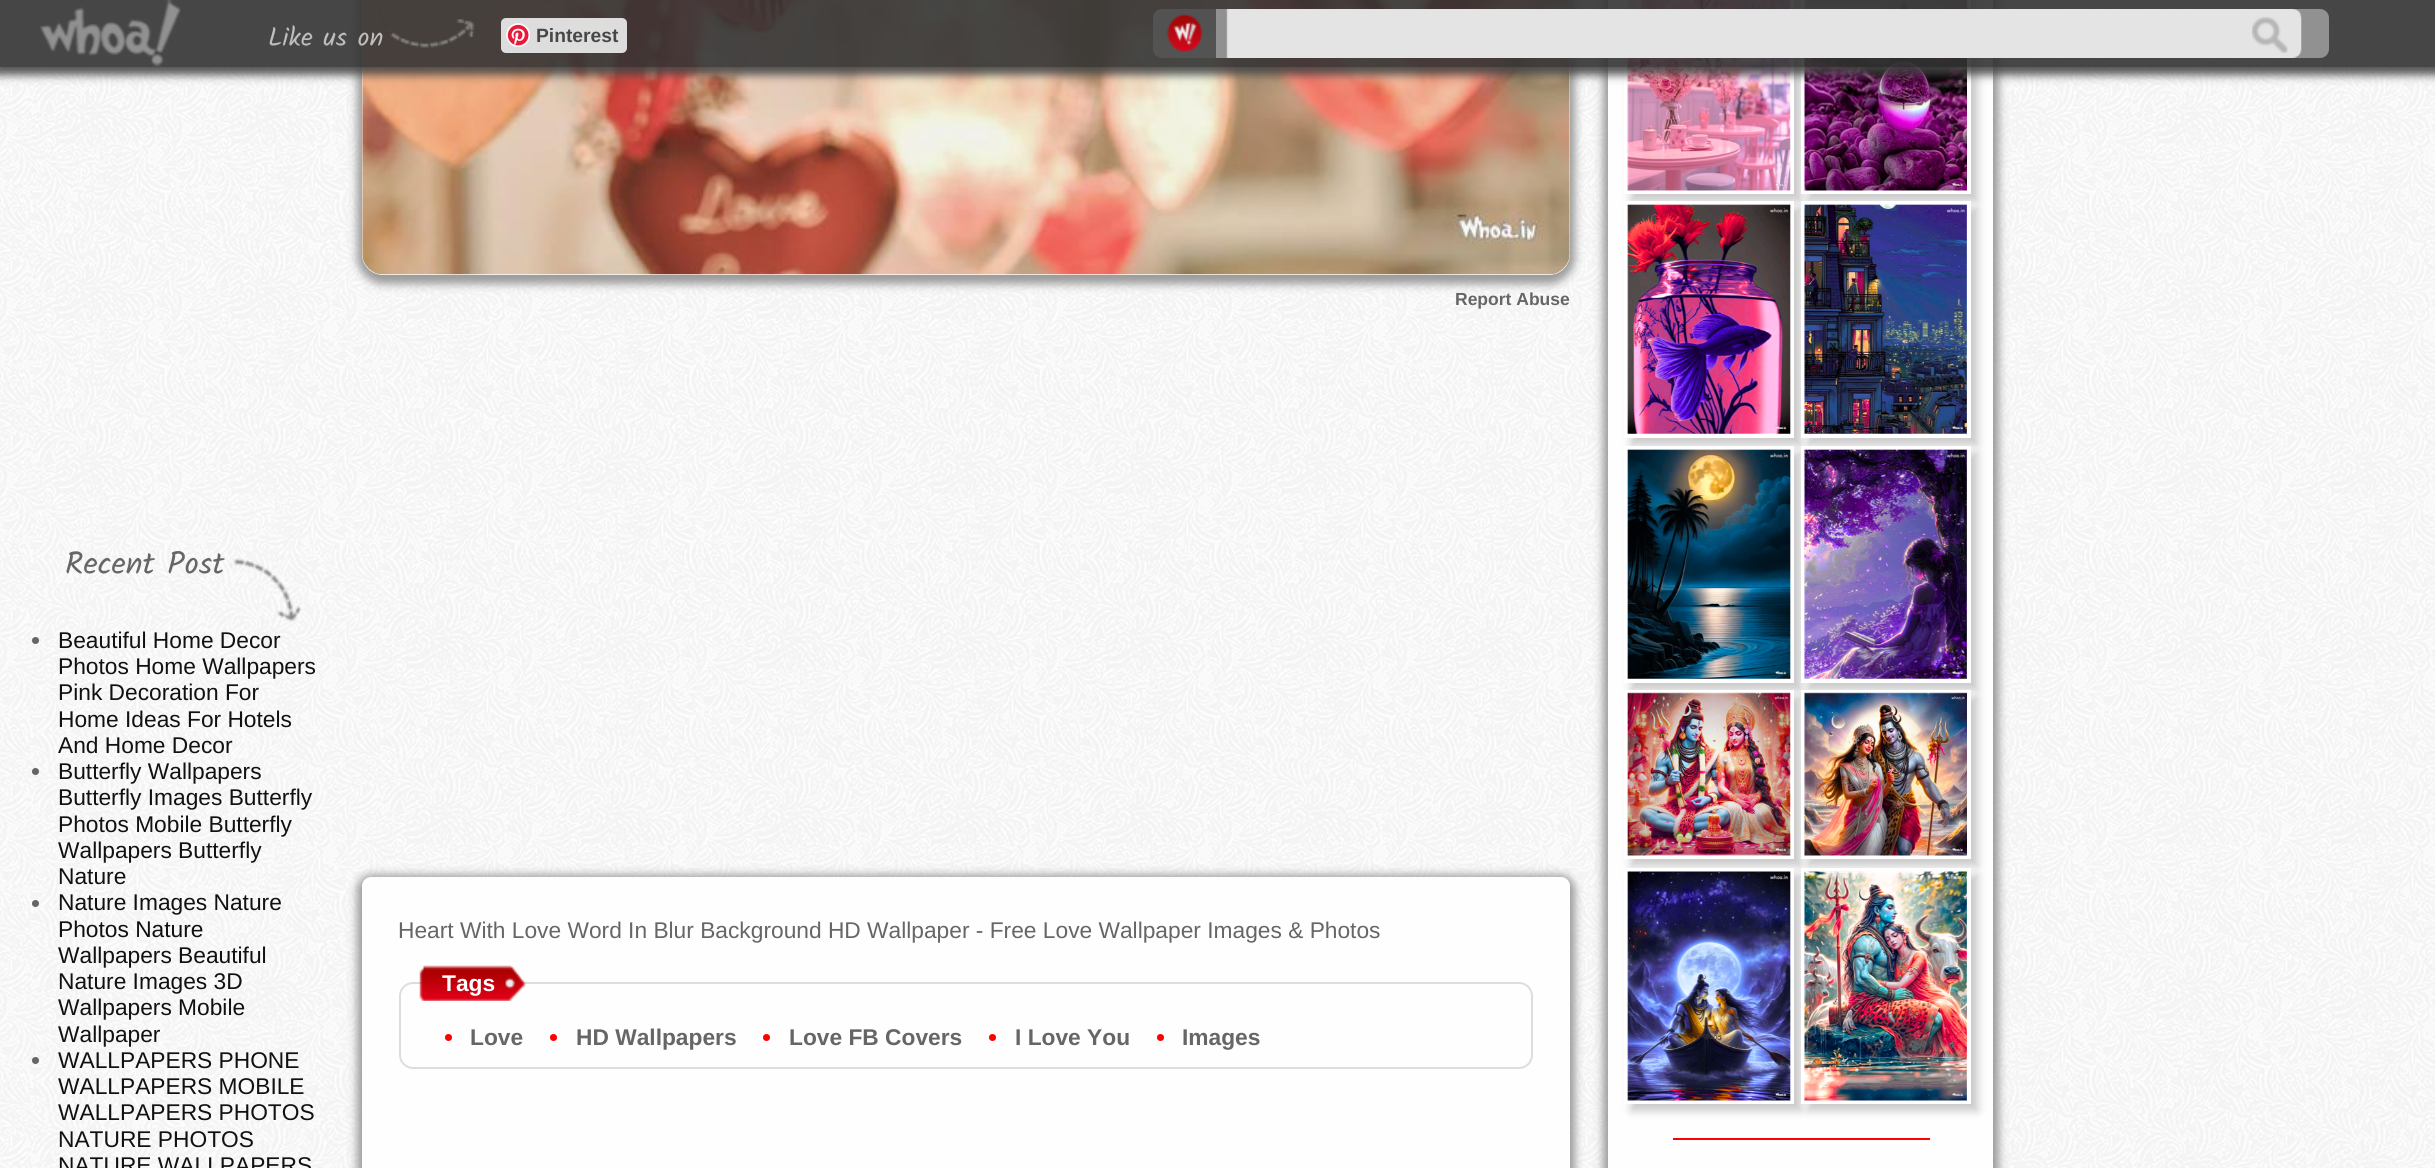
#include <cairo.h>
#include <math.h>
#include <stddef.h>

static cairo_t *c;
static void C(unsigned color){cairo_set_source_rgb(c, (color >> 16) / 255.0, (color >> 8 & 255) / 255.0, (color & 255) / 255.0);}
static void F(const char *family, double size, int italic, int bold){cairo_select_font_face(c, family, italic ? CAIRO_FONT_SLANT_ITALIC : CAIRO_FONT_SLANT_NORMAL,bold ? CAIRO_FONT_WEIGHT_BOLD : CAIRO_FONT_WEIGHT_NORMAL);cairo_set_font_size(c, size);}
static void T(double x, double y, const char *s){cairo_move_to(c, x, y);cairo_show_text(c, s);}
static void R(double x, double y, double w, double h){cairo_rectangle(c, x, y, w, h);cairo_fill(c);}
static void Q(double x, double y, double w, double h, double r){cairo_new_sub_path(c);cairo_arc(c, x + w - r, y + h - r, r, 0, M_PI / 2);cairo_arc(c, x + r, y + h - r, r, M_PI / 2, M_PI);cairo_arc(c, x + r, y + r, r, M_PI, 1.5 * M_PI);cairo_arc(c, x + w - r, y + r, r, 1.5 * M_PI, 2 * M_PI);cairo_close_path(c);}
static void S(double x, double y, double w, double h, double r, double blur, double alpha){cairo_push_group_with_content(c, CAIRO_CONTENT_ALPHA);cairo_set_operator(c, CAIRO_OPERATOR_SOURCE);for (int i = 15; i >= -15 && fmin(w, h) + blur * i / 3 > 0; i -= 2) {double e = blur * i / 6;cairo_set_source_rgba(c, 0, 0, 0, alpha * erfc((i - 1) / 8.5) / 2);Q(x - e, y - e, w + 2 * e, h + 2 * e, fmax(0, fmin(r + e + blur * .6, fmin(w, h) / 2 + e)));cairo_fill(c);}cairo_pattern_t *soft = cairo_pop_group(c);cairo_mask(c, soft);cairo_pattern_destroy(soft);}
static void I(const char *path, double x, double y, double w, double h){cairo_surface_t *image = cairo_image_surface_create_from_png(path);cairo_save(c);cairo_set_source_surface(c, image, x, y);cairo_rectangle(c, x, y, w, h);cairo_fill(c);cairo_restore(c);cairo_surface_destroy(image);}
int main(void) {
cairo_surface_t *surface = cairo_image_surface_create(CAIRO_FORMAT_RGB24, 2435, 1168);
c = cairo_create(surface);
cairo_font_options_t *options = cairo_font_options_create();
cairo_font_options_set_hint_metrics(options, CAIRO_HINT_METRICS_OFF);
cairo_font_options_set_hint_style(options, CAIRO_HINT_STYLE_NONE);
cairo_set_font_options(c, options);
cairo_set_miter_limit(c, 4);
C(0xffffff);
cairo_paint(c);
I("1.png",0,0,2435,1168);
C(0x999999);
S(357,-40,1218,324,26,4.5,1);
C(0xfefefe);
Q(362,-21,1208,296,21);
cairo_fill(c);
I("8.png",362,0,1208,275);
C(0x999999);
S(1603,-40,396,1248,26,4.5,1);
C(0xfefefe);
R(1608,0,385,1168);
C(0x505050);
S(1631,-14,170,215,0,4.5,.3);
C(0xffffff);
R(1624,0,170,194);
I("10.png",1627,0,164,191);
C(0x505050);
S(1808,-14,170,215,0,4.5,.3);
C(0xffffff);
R(1801,0,170,194);
I("11.png",1804,0,163,191);
cairo_save(c);
cairo_set_fill_rule(c,CAIRO_FILL_RULE_EVEN_ODD);
cairo_new_path(c);
cairo_move_to(c,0,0);
cairo_line_to(c,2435,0);
cairo_line_to(c,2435,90);
cairo_line_to(c,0,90);
cairo_close_path(c);
cairo_move_to(c,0,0);
cairo_line_to(c,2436,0);
cairo_line_to(c,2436,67);
cairo_line_to(c,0,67);
cairo_close_path(c);
cairo_clip(c);
C(0x444444);
S(-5,-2,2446,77,0,4.5,.9);
cairo_restore(c);
cairo_set_source_rgba(c,0.2,0.2,0.2,0.9);
R(0,0,2435,67);
I("2.png",40,0,141,67);
I("3.png",390,19,85,29);
F("Kalam",26.25,0,0);
C(0xbfbebe);
T(268,46,"Like us on");
cairo_set_source_rgba(c,0.937,0.937,0.937,0.9);
Q(501,18,126,35,5);
cairo_fill(c);
I("4.png",506,23,24,24);
F("Liberation Sans",19.25,0,1);
C(0x474747);
T(536,42,"Pinterest");
cairo_set_source_rgba(c,0.333,0.333,0.333,0.9);
cairo_new_path(c);
cairo_move_to(c,1162,9);
cairo_line_to(c,1220,9);
cairo_line_to(c,1220,58);
cairo_line_to(c,1162,58);
cairo_curve_to(c,1157,58,1153,54,1153,49);
cairo_line_to(c,1153,18);
cairo_curve_to(c,1153,13,1157,9,1162,9);
cairo_close_path(c);
cairo_fill(c);
C(0x929292);
R(1216,9,4,49);
I("5.png",1167,14,36,38);
cairo_set_source_rgba(c,0.6,0.6,0.6,0.9);
cairo_new_path(c);
cairo_move_to(c,1220,9);
cairo_line_to(c,2320,9);
cairo_curve_to(c,2325,9,2329,13,2329,18);
cairo_line_to(c,2329,49);
cairo_curve_to(c,2329,54,2325,58,2320,58);
cairo_line_to(c,1220,58);
cairo_close_path(c);
cairo_fill(c);
I("6.png",1226,9,1076,49);
I("7.png",230,558,72,64);
F("Kalam",31.5,0,0);
C(0x666666);
T(65,574,"Recent Post");
cairo_new_path(c);
cairo_arc(c,35.5,640.5,3.5,0,2 * M_PI);
cairo_fill(c);
F("Liberation Sans",22.75,0,0);
C(0x111111);
T(58,648,"Beautiful Home Decor");
T(58,674,"Photos Home Wallpapers");
T(58,700,"Pink Decoration For");
T(58,727,"Home Ideas For Hotels");
T(58,753,"And Home Decor");
C(0x666666);
cairo_new_path(c);
cairo_arc(c,35.5,771.5,3.5,0,2 * M_PI);
cairo_fill(c);
C(0x111111);
T(58,779,"Butterfly Wallpapers");
T(58,805,"Butterfly Images Butterfly");
T(58,832,"Photos Mobile Butterfly");
T(58,858,"Wallpapers Butterfly");
T(58,884,"Nature");
C(0x666666);
cairo_new_path(c);
cairo_arc(c,35.5,903.5,3.5,0,2 * M_PI);
cairo_fill(c);
C(0x111111);
T(58,910,"Nature Images Nature");
T(58,937,"Photos Nature");
T(58,963,"Wallpapers Beautiful");
T(58,989,"Nature Images 3D");
T(58,1015,"Wallpapers Mobile");
T(58,1042,"Wallpaper");
C(0x666666);
cairo_new_path(c);
cairo_arc(c,35.5,1060.5,3.5,0,2 * M_PI);
cairo_fill(c);
C(0x111111);
T(58,1068,"WALLPAPERS PHONE");
T(58,1094,"WALLPAPERS MOBILE");
T(58,1120,"WALLPAPERS PHOTOS");
T(58,1147,"NATURE PHOTOS");
T(58,1173,"NATURE WALLPAPERS");
F("Liberation Sans",17.5,0,1);
C(0x666666);
T(1455,305,"Report Abuse");
C(0x999999);
S(357,875,1218,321,14,4.5,1);
C(0xfefefe);
Q(362,877,1208,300,9);
cairo_fill(c);
F("Liberation Sans",22.75,0,0);
C(0x666666);
T(398,938,"Heart With Love Word In Blur Background HD Wallpaper - Free Love Wallpaper Images & Photos");
Q(400,983,1132,85,13);
C(0xdddddd);
cairo_stroke(c);
I("9.png",419,965,107,36);
F("Liberation Sans",22.75,0,1);
C(0xffffff);
T(442,991,"Tags");
C(0xff0000);
cairo_new_path(c);
cairo_arc(c,448.5,1037.5,3.5,0,2 * M_PI);
cairo_fill(c);
C(0x666666);
T(470,1045,"Love");
C(0xff0000);
cairo_new_path(c);
cairo_arc(c,553.5,1037.5,3.5,0,2 * M_PI);
cairo_fill(c);
C(0x666666);
T(576,1045,"HD Wallpapers");
C(0xff0000);
cairo_new_path(c);
cairo_arc(c,766.5,1037.5,3.5,0,2 * M_PI);
cairo_fill(c);
C(0x666666);
T(789,1045,"Love FB Covers");
C(0xff0000);
cairo_new_path(c);
cairo_arc(c,992.5,1037.5,3.5,0,2 * M_PI);
cairo_fill(c);
C(0x666666);
T(1015,1045,"I Love You");
C(0xff0000);
cairo_new_path(c);
cairo_arc(c,1160.5,1037.5,3.5,0,2 * M_PI);
cairo_fill(c);
C(0x666666);
T(1182,1045,"Images");
C(0x505050);
S(1631,208,170,237,0,4.5,.3);
C(0xffffff);
R(1624,201,170,237);
I("12.png",1627,204,164,230);
C(0x505050);
S(1808,208,170,237,0,4.5,.3);
C(0xffffff);
R(1801,201,170,237);
I("13.png",1804,204,163,230);
C(0x505050);
S(1631,453,170,237,0,4.5,.3);
C(0xffffff);
R(1624,446,170,237);
I("14.png",1627,449,164,230);
C(0x505050);
S(1808,453,170,237,0,4.5,.3);
C(0xffffff);
R(1801,446,170,237);
I("15.png",1804,449,163,230);
C(0x505050);
S(1631,697,170,169,0,4.5,.3);
C(0xffffff);
R(1624,690,170,169);
I("16.png",1627,692,164,164);
C(0x505050);
S(1808,697,170,169,0,4.5,.3);
C(0xffffff);
R(1801,690,170,169);
I("17.png",1804,692,163,164);
C(0x505050);
S(1631,875,170,236,0,4.5,.3);
C(0xffffff);
R(1624,868,170,236);
I("18.png",1627,871,164,230);
C(0x505050);
S(1808,875,170,236,0,4.5,.3);
C(0xffffff);
R(1801,868,170,236);
I("19.png",1804,871,163,230);
C(0xff0000);
R(1673,1138,257,2);
cairo_surface_write_to_png(surface, "o.png");
cairo_font_options_destroy(options);
cairo_destroy(c);
cairo_surface_destroy(surface);
return 0;
}
